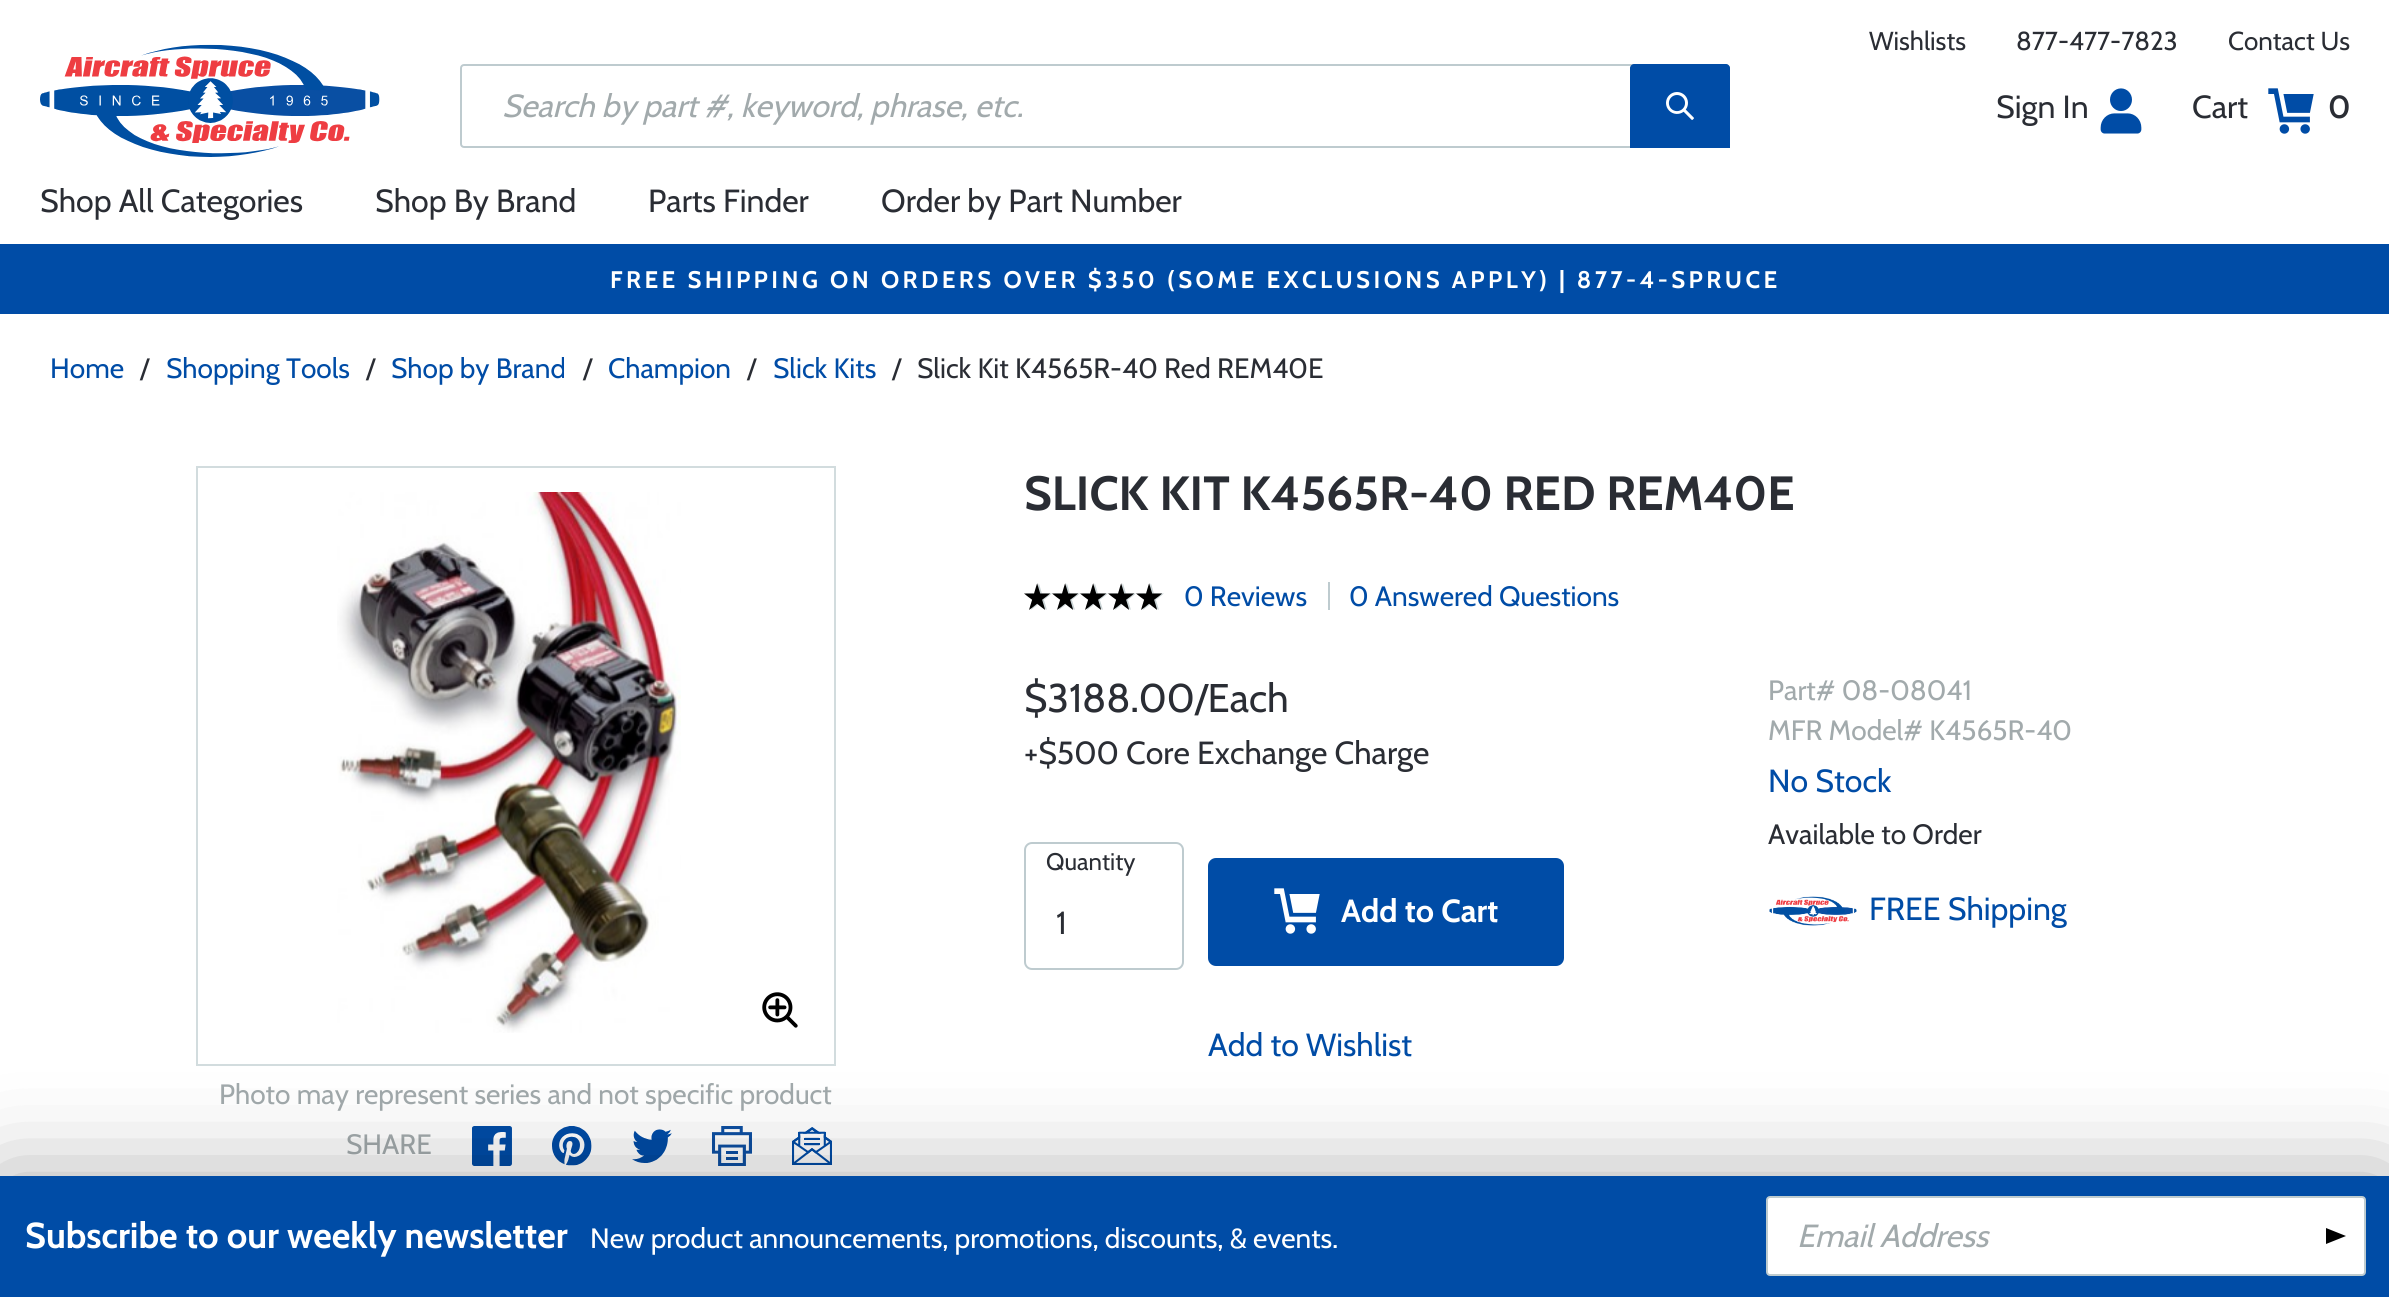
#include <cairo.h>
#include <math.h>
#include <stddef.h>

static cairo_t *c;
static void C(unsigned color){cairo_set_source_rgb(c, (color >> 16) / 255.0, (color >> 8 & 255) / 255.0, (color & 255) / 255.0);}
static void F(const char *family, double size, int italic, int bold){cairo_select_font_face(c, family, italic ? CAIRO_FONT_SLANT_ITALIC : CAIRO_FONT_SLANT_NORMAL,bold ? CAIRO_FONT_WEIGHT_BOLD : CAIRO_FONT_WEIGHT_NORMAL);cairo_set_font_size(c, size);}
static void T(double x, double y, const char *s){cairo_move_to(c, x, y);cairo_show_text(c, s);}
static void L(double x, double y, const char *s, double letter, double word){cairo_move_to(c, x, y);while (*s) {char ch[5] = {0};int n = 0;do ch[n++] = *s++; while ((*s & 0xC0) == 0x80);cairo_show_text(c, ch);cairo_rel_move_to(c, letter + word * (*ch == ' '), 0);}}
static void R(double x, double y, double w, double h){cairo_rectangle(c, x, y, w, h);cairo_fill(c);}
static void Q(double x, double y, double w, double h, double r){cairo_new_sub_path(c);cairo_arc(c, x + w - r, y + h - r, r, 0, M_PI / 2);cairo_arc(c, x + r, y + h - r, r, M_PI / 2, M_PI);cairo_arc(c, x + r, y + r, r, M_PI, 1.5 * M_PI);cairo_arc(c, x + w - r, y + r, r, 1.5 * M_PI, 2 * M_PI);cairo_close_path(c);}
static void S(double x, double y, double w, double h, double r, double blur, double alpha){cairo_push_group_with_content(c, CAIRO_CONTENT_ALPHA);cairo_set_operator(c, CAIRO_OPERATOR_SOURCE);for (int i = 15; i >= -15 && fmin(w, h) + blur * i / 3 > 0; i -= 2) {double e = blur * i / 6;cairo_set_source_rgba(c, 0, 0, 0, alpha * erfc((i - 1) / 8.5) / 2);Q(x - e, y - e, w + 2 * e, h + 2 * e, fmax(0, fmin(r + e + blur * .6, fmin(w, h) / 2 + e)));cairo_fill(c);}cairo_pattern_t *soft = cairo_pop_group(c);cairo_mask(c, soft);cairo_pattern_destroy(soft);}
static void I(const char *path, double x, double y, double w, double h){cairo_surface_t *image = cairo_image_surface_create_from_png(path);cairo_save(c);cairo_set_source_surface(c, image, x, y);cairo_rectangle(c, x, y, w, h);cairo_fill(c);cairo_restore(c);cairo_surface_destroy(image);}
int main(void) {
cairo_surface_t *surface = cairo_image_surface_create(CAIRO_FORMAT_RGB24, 2389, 1297);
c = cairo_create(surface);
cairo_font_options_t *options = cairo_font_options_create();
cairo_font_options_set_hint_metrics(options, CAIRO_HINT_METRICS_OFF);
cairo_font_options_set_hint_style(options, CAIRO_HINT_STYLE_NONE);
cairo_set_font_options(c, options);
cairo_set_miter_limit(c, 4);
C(0xffffff);
cairo_paint(c);
F("Cabin",26,0,0);
C(0x2a2d34);
T(1869,50,"Wishlists");
T(2016,50,"877-477-7823");
T(2228,50,"Contact Us");
I("1.png",40,44,340,113);
Q(461,65,1268,82,3);
C(0xbecbcf);
cairo_stroke(c);
F("Cabin",32,1,0);
C(0xa2aaac);
T(502,117,"Search by part #, keyword, phrase, etc.");
C(0x004ca6);
cairo_new_path(c);
cairo_move_to(c,1634,64);
cairo_line_to(c,1726,64);
cairo_curve_to(c,1728,64,1730,66,1730,68);
cairo_line_to(c,1730,148);
cairo_line_to(c,1630,148);
cairo_line_to(c,1630,68);
cairo_curve_to(c,1630,66,1632,64,1634,64);
cairo_close_path(c);
cairo_fill(c);
I("2.png",1666,92,28,28);
F("Cabin",32,0,0);
C(0x2a2d34);
T(1996,118,"Sign In");
I("3.png",2100,88,42,46);
T(2192,118,"Cart");
I("4.png",2268,88,46,46);
F("Cabin SemiBold",32,0,0);
T(2328,118,"0");
F("Cabin",32,0,0);
T(40,212,"Shop All Categories");
T(375,212,"Shop By Brand");
T(648,212,"Parts Finder");
T(881,212,"Order by Part Number");
C(0x004ca6);
R(0,244,2389,70);
F("Cabin",24,0,1);
C(0xffffff);
L(610,288,"FREE SHIPPING ON ORDERS OVER $350 (SOME EXCLUSIONS APPLY) | 877-4-SPRUCE",3.42,0);
F("Cabin",28,0,0);
C(0x004ca6);
T(50,378,"Home");
C(0x2a2d34);
T(140,378,"/");
C(0x004ca6);
T(166,378,"Shopping Tools");
C(0x2a2d34);
T(366,378,"/");
C(0x004ca6);
T(391,378,"Shop by Brand");
C(0x2a2d34);
T(583,378,"/");
C(0x004ca6);
T(608,378,"Champion");
C(0x2a2d34);
T(747,378,"/");
C(0x004ca6);
T(773,378,"Slick Kits");
C(0x2a2d34);
T(892,378,"/");
T(917,378,"Slick Kit K4565R-40 Red REM40E");
F("Cabin",48,0,1);
T(1024,510,"SLICK KIT K4565R-40 RED REM40E");
I("5.png",1026,583,138,27);
I("6.png",1024,583,138,27);
C(0xbecbcf);
R(1328,582,2,28);
F("Cabin",28,0,0);
C(0x004ca6);
T(1184,606,"0 Reviews");
T(1349,606,"0 Answered Questions");
F("Cabin",40,0,0);
C(0x2a2d34);
T(1024,712,"$3188.00/Each");
F("Cabin",32,0,0);
T(1024,764,"+$500 Core Exchange Charge");
Q(1025,843,158,126,7);
C(0xbecbcf);
cairo_stroke(c);
F("Cabin",24,0,0);
C(0x2a2d34);
T(1046,870,"Quantity");
F("Cabin",32,0,0);
T(1056,934,"1");
C(0x004ca6);
Q(1208,858,356,108,8);
cairo_fill(c);
I("7.png",1274,888,46,46);
F("Cabin",32,0,1);
C(0xffffff);
T(1341,922,"Add to Cart");
F("Cabin",32,0,0);
C(0x004ca6);
T(1208,1056,"Add to Wishlist");
F("Cabin",28,0,0);
C(0xa2aaac);
T(1768,700,"Part# 08-08041");
T(1768,740,"MFR Model# K4565R-40");
F("Cabin",32,0,0);
C(0x004ca6);
T(1768,792,"No Stock");
F("Cabin",28,0,0);
C(0x2a2d34);
T(1768,844,"Available to Order");
I("8.png",1769,896,88,30);
F("Cabin",32,0,0);
C(0x004ca6);
T(1869,920,"FREE Shipping");
cairo_rectangle(c,197,467,638,598);
C(0xd2dcde);
cairo_stroke(c);
I("9.png",337,492,344,541);
I("10.png",762,992,36,36);
F("Cabin",28,0,0);
C(0xa2aaac);
T(219,1104,"Photo may represent series and not specific product");
T(346,1154,"SHARE");
I("11.png",472,1126,40,40);
I("12.png",552,1126,40,40);
I("13.png",632,1129,40,34);
I("14.png",712,1126,40,40);
I("15.png",792,1127,40,38);
C(0x000000);
S(0,1180,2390,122,0,50,.34);
C(0x004ca6);
R(0,1176,2389,121);
F("Cabin",36,0,1);
C(0xffffff);
T(25,1248,"Subscribe to our weekly newsletter");
F("Cabin",28,0,0);
T(590,1248,"New product announcements, promotions, discounts, & events.");
Q(1767,1197,598,78,3);
cairo_fill_preserve(c);
C(0xbecbcf);
cairo_stroke(c);
F("Cabin",32,1,0);
C(0xa2aaac);
T(1797,1247,"Email Address");
C(0x000000);
cairo_new_path(c);
cairo_move_to(c,2326,1244);
cairo_line_to(c,2326,1228);
cairo_line_to(c,2346,1236);
cairo_close_path(c);
cairo_fill(c);
cairo_surface_write_to_png(surface, "o.png");
cairo_font_options_destroy(options);
cairo_destroy(c);
cairo_surface_destroy(surface);
return 0;
}
